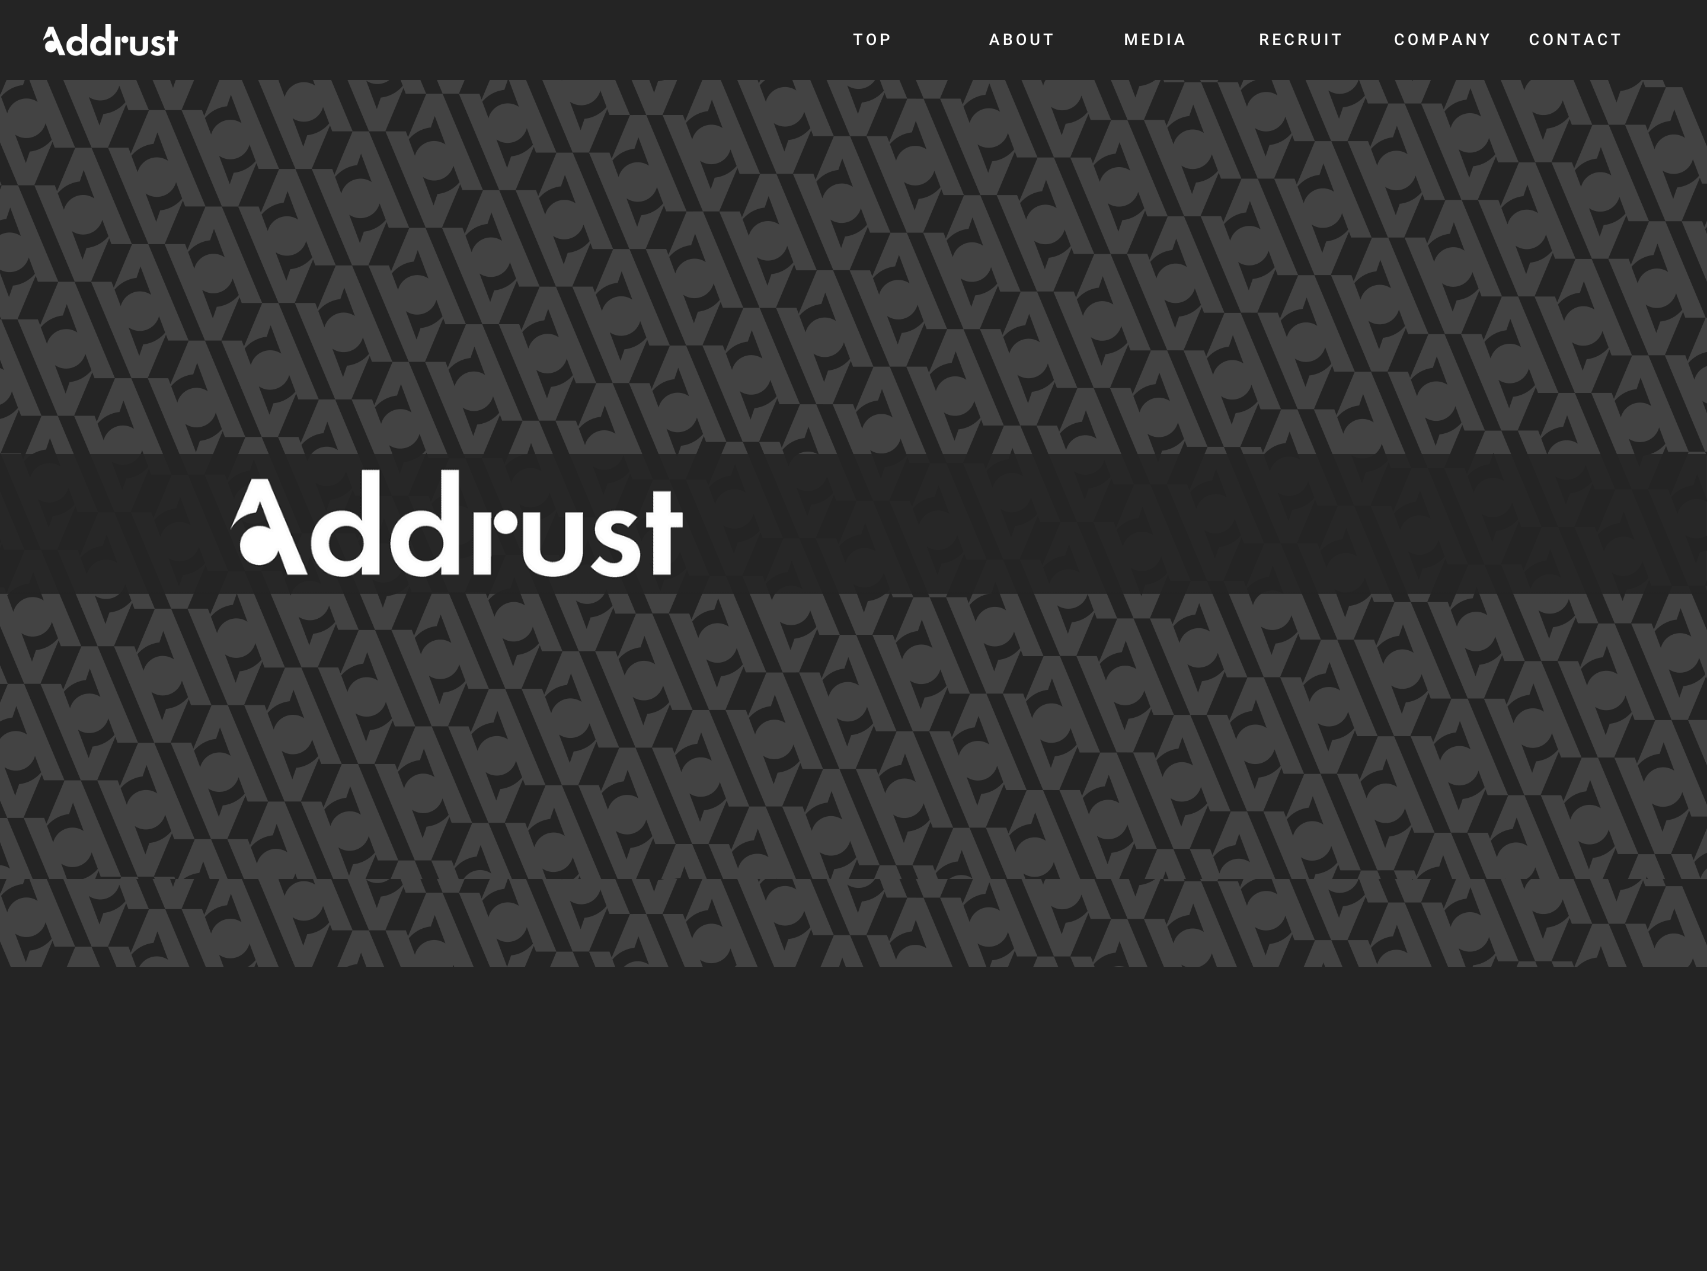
#include <cairo.h>
#include <math.h>
#include <stddef.h>

static cairo_t *c;
static void C(unsigned color){cairo_set_source_rgb(c, (color >> 16) / 255.0, (color >> 8 & 255) / 255.0, (color & 255) / 255.0);}
static void F(const char *family, double size, int italic, int bold){cairo_select_font_face(c, family, italic ? CAIRO_FONT_SLANT_ITALIC : CAIRO_FONT_SLANT_NORMAL,bold ? CAIRO_FONT_WEIGHT_BOLD : CAIRO_FONT_WEIGHT_NORMAL);cairo_set_font_size(c, size);}
static void L(double x, double y, const char *s, double letter, double word){cairo_move_to(c, x, y);while (*s) {char ch[5] = {0};int n = 0;do ch[n++] = *s++; while ((*s & 0xC0) == 0x80);cairo_show_text(c, ch);cairo_rel_move_to(c, letter + word * (*ch == ' '), 0);}}
static void I(const char *path, double x, double y, double w, double h){cairo_surface_t *image = cairo_image_surface_create_from_png(path);cairo_save(c);cairo_set_source_surface(c, image, x, y);cairo_rectangle(c, x, y, w, h);cairo_fill(c);cairo_restore(c);cairo_surface_destroy(image);}
int main(void) {
cairo_surface_t *surface = cairo_image_surface_create(CAIRO_FORMAT_RGB24, 1707, 1271);
c = cairo_create(surface);
cairo_font_options_t *options = cairo_font_options_create();
cairo_font_options_set_hint_metrics(options, CAIRO_HINT_METRICS_OFF);
cairo_font_options_set_hint_style(options, CAIRO_HINT_STYLE_NONE);
cairo_set_font_options(c, options);
cairo_set_miter_limit(c, 4);
C(0x242424);
cairo_paint(c);
I("1.png",43,24,135,32);
F("Roboto Medium",16,0,0);
C(0xffffff);
L(853,45,"TOP",3,0);
L(989,45,"ABOUT",3,0);
L(1124,45,"MEDIA",3,0);
L(1259,45,"RECRUIT",3,0);
L(1394,45,"COMPANY",3,0);
L(1529,45,"CONTACT",3,0);
I("2.png",0,80,1707,887);
I("3.png",0,454,1707,140);
cairo_surface_write_to_png(surface, "o.png");
cairo_font_options_destroy(options);
cairo_destroy(c);
cairo_surface_destroy(surface);
return 0;
}
